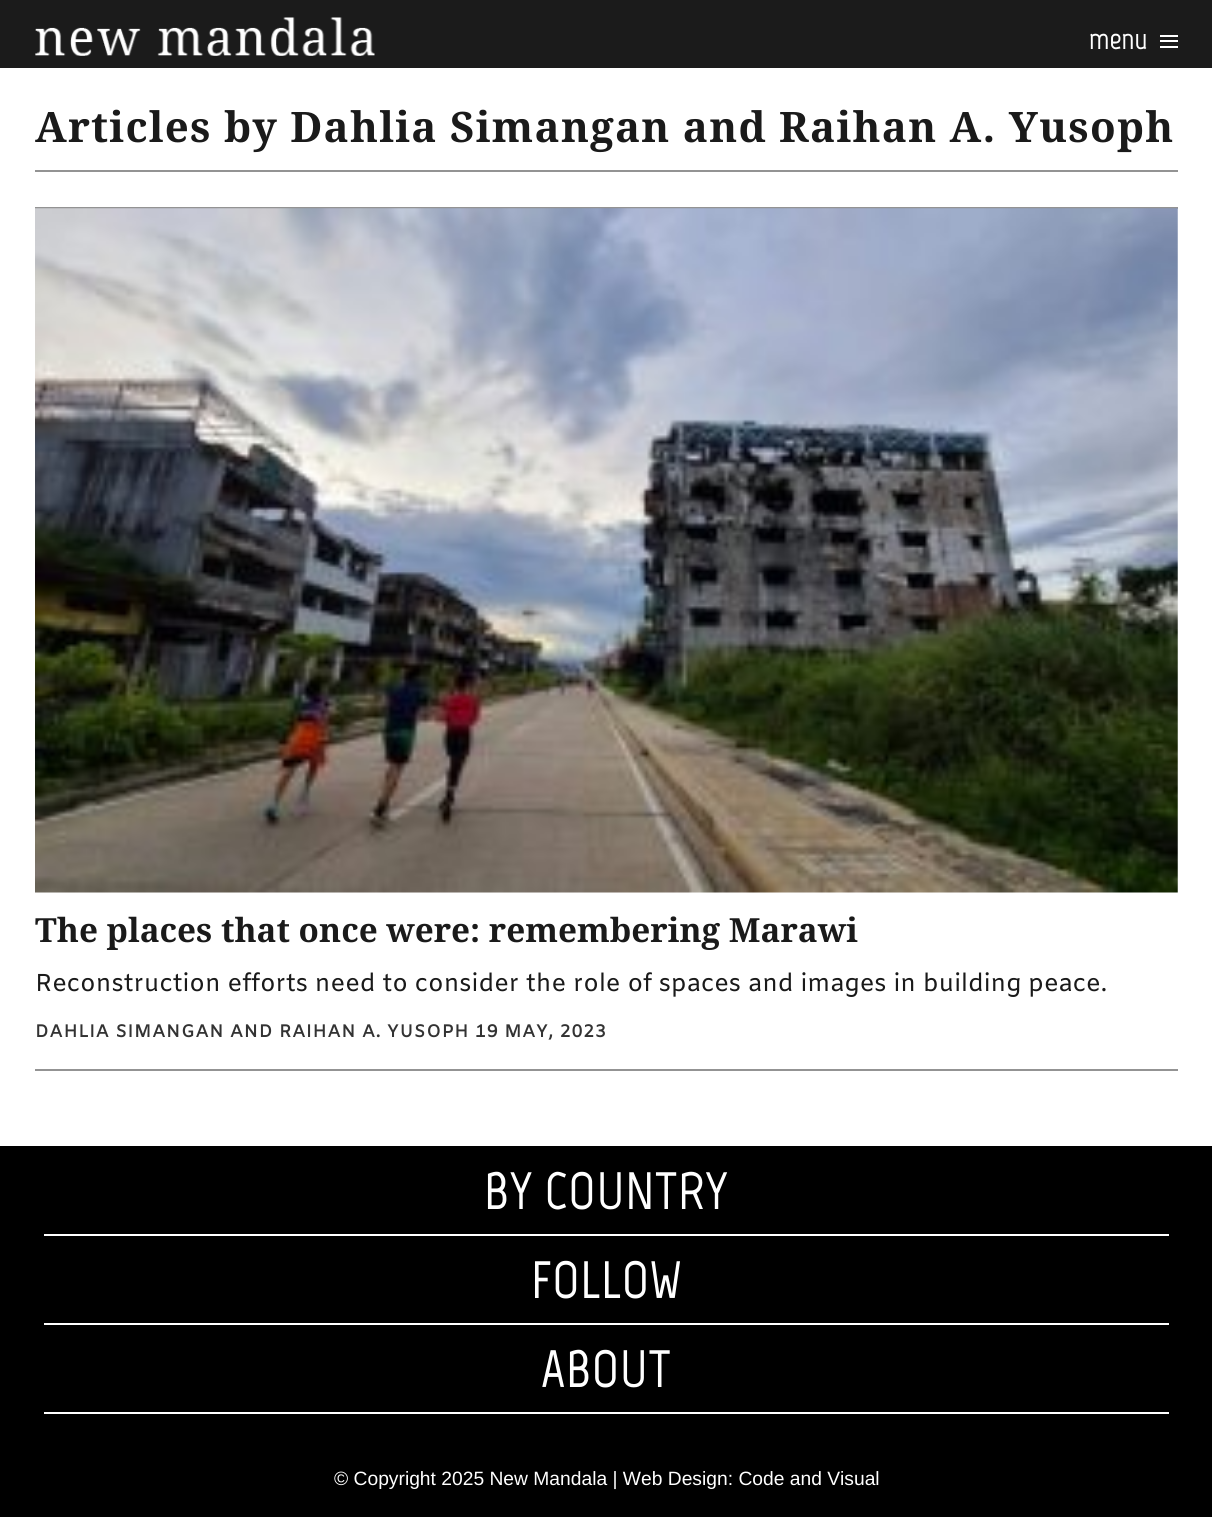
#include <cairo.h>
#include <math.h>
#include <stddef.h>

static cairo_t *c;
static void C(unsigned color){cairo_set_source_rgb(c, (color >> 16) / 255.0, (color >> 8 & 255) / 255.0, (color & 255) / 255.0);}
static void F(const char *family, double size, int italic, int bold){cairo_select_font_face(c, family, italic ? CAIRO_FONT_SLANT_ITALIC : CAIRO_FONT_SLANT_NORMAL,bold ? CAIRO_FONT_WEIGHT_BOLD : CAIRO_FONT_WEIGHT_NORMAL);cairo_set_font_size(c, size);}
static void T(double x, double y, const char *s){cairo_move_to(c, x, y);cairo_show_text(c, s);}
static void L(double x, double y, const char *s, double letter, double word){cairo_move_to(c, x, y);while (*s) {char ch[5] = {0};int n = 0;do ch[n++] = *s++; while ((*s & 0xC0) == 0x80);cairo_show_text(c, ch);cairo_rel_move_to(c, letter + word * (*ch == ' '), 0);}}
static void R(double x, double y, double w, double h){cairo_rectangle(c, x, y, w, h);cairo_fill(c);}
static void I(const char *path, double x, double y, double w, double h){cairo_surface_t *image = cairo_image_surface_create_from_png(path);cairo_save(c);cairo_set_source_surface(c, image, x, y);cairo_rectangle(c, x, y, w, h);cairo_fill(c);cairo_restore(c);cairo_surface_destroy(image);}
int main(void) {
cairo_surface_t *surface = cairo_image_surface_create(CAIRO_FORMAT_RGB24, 1212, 1517);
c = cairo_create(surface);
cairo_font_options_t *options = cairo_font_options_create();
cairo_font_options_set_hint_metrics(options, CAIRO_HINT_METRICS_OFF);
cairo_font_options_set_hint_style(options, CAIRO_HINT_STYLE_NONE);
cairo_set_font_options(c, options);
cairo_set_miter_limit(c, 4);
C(0xffffff);
cairo_paint(c);
C(0x1b1b1b);
R(0,0,1212,68);
I("1.png",35,17,340,39);
F("Marvel",30,0,1);
C(0xffffff);
T(1089,49,"menu");
R(1160,40,18,2);
R(1160,35,18,2);
R(1160,46,18,2);
C(0x939393);
R(35,207,1143,2);
R(35,170,1143,2);
F("Droid Serif",42,0,1);
C(0x1a1a1a);
L(35,142,"Articles by Dahlia Simangan and Raihan A. Yusoph",1.25,0);
C(0x939393);
R(35,1069,1143,2);
I("2.png",35,208,1143,685);
F("Droid Serif",33.25,0,1);
C(0x1a1a1a);
T(35,942,"The places that once were: remembering Marawi");
F("Amiko",24.5,0,0);
T(35,991,"Reconstruction efforts need to consider the role of spaces and images in building peace.");
F("Amiko",17.5,0,1);
C(0x333333);
L(35,1037,"DAHLIA SIMANGAN AND RAIHAN A. YUSOPH 19 MAY, 2023",.9,0);
C(0x000000);
R(0,1146,1212,371);
C(0xffffff);
R(44,1234,1125,2);
F("Marvel",52.5,0,1);
L(484,1209,"BY COUNTRY",.75,0);
R(44,1323,1125,2);
L(531,1298,"FOLLOW",.75,0);
R(44,1412,1125,2);
L(541,1387,"ABOUT",.75,0);
F("Liberation Sans",19.25,0,0);
T(334,1485,"© Copyright 2025 New Mandala | Web Design: Code and Visual");
cairo_surface_write_to_png(surface, "o.png");
cairo_font_options_destroy(options);
cairo_destroy(c);
cairo_surface_destroy(surface);
return 0;
}
